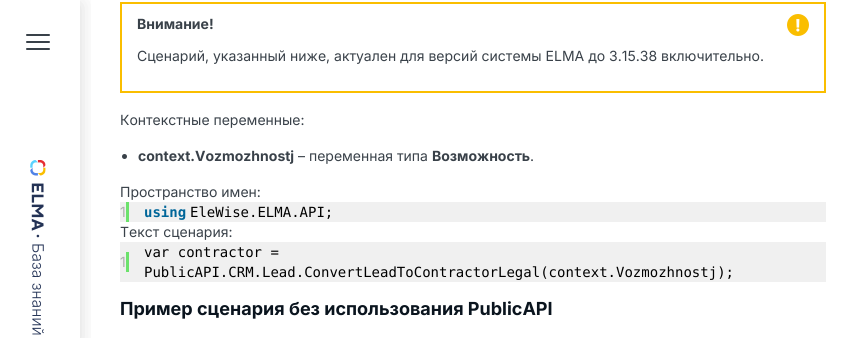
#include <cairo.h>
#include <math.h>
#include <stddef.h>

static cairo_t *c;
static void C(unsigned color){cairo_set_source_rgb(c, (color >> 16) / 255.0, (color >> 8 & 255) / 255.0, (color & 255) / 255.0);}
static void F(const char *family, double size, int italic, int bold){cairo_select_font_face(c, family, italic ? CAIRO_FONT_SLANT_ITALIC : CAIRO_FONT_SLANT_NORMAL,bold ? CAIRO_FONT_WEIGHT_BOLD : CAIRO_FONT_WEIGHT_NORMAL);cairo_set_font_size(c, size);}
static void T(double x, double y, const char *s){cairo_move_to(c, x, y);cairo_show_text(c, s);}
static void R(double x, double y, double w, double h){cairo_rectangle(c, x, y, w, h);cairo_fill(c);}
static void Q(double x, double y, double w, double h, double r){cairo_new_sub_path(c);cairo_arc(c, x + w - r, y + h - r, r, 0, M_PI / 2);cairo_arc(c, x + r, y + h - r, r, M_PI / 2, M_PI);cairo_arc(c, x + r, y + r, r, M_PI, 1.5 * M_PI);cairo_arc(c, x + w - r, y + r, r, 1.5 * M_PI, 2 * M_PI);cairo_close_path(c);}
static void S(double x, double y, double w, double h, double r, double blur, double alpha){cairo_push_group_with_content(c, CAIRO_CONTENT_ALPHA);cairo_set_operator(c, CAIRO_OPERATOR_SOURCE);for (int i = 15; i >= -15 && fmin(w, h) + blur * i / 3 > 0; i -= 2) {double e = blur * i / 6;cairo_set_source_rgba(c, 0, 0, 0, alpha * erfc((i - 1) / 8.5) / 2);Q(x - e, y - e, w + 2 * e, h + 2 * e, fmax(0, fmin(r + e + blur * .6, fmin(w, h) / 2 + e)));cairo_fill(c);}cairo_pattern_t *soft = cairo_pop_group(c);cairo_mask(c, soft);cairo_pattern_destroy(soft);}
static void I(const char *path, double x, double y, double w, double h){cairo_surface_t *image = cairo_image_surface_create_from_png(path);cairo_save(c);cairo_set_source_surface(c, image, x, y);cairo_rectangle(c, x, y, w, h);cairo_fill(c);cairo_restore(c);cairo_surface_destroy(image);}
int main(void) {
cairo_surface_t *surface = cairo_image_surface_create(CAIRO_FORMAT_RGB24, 866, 338);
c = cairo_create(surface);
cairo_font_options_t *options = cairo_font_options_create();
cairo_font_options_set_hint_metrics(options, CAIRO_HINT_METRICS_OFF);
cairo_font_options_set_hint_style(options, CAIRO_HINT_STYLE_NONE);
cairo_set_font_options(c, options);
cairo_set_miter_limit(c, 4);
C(0xffffff);
cairo_paint(c);
cairo_save(c);
cairo_rectangle(c,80,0,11,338);
cairo_clip(c);
C(0x000000);
S(0,4,80,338,0,10,.15);
cairo_restore(c);
C(0x394149);
Q(26,34,24,2,1);
cairo_fill(c);
Q(26,41,24,2,1);
cairo_fill(c);
Q(26,48,24,2,1);
cairo_fill(c);
I("1.png",30,160,16,175);
cairo_rectangle(c,121,3,704,89);
C(0xfabe00);
cairo_stroke(c);
I("2.png",787,14,22,22);
F("Inter",14,0,1);
C(0x394149);
T(137,29,"Внимание!");
F("Inter",14,0,0);
T(137,61,"Сценарий, указанный ниже, актуален для версий системы ELMA до 3.15.38 включительно.");
T(120,125,"Контекстные переменные:");
cairo_new_path(c);
cairo_arc(c,124.5,156.5,2.5,0,2 * M_PI);
cairo_fill(c);
F("Inter",14,0,1);
T(138,161,"context.Vozmozhnostj");
F("Inter",14,0,0);
T(298,161,"– переменная типа");
F("Inter",14,0,1);
T(432,161,"Возможность");
F("Inter",14,0,0);
T(530,161,".");
T(120,197,"Пространство имен:");
C(0xf0f0f0);
R(120,202,706,20);
C(0x6ce26c);
R(126,202,3,20);
C(0xafafaf);
T(120,217,"1");
F("DejaVu Sans Mono",14,0,1);
C(0x006699);
T(144,217,"using");
F("DejaVu Sans Mono",14,0,0);
C(0x000000);
T(190,217,"EleWise.ELMA.API;");
F("Inter",14,0,0);
C(0x394149);
T(120,237,"Текст сценария:");
C(0xf0f0f0);
R(120,242,706,40);
C(0x6ce26c);
R(126,252,3,20);
C(0xafafaf);
T(120,267,"1");
F("DejaVu Sans Mono",14,0,0);
C(0x000000);
T(144,257,"var contractor =");
T(144,277,"PublicAPI.CRM.Lead.ConvertLeadToContractorLegal(context.Vozmozhnostj);");
F("Inter",18,0,1);
C(0x0a141e);
T(120,315,"Пример сценария без использования PublicAPI");
cairo_surface_write_to_png(surface, "o.png");
cairo_font_options_destroy(options);
cairo_destroy(c);
cairo_surface_destroy(surface);
return 0;
}
